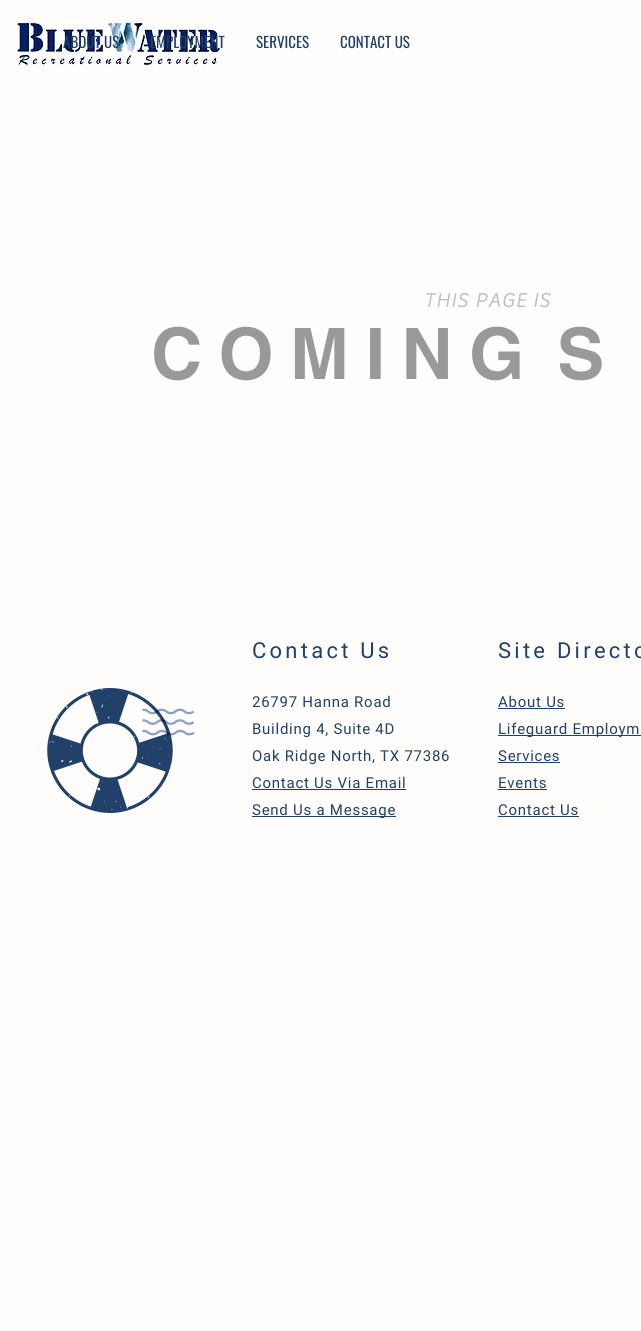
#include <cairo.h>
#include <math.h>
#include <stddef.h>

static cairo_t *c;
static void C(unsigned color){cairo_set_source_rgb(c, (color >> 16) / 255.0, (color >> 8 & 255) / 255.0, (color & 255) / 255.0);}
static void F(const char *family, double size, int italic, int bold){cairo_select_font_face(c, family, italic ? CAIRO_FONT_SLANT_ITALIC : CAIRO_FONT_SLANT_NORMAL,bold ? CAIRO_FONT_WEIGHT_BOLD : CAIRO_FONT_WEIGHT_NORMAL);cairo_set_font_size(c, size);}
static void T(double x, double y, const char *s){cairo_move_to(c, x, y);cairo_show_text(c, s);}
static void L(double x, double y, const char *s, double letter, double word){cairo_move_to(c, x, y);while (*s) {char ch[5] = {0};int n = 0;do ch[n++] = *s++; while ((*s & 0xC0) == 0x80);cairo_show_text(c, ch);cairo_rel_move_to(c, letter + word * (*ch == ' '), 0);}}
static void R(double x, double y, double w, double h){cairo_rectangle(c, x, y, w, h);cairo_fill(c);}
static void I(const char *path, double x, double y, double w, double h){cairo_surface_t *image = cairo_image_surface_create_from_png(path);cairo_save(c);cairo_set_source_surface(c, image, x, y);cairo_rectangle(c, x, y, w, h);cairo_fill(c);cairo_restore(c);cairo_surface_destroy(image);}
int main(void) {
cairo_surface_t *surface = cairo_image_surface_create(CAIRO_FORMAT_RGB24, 641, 1331);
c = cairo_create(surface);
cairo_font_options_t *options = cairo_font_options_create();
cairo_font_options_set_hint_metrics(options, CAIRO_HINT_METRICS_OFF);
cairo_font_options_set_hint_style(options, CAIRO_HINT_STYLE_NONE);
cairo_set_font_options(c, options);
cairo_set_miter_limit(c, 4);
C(0xfffdfb);
cairo_paint(c);
I("1.png",14,20,208,46);
F("Oswald",15,0,0);
C(0x21406a);
T(63,48,"ABOUT US");
T(150,48,"EMPLOYMENT");
T(256,48,"SERVICES");
T(340,48,"CONTACT US");
F("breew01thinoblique",20,0,1);
C(0xbfbfbf);
L(424,307,"THIS PAGE IS",1.6,0);
F("helvetica",71,0,1);
C(0x999999);
L(151,379,"COMING",16.25,0);
L(557,379,"S",16.25,0);
I("2.png",47,688,148,125);
F("Roboto",22,0,0);
C(0x21406a);
L(252,658,"Contact Us",3.25,0);
F("Roboto",15,0,0);
L(252,707,"26797 Hanna Road",.75,0);
L(252,734,"Building 4, Suite 4D",.75,0);
L(252,761,"Oak Ridge North, TX 77386",.75,0);
L(252,788,"Contact Us Via Email",.75,0);
R(252,789,154,1);
R(252,816,144,1);
L(252,815,"Send Us a Message",.75,0);
F("Roboto",22,0,0);
L(498,658,"Site Directo",3.25,0);
F("Roboto",15,0,0);
L(498,707,"About Us",.75,0);
R(498,708,67,1);
R(498,735,143,1);
L(498,734,"Lifeguard Employm",.75,0);
L(498,761,"Services",.75,0);
R(498,762,62,1);
L(498,788,"Events",.75,0);
R(498,789,49,1);
L(498,815,"Contact Us",.75,0);
R(498,816,81,1);
cairo_surface_write_to_png(surface, "o.png");
cairo_font_options_destroy(options);
cairo_destroy(c);
cairo_surface_destroy(surface);
return 0;
}
